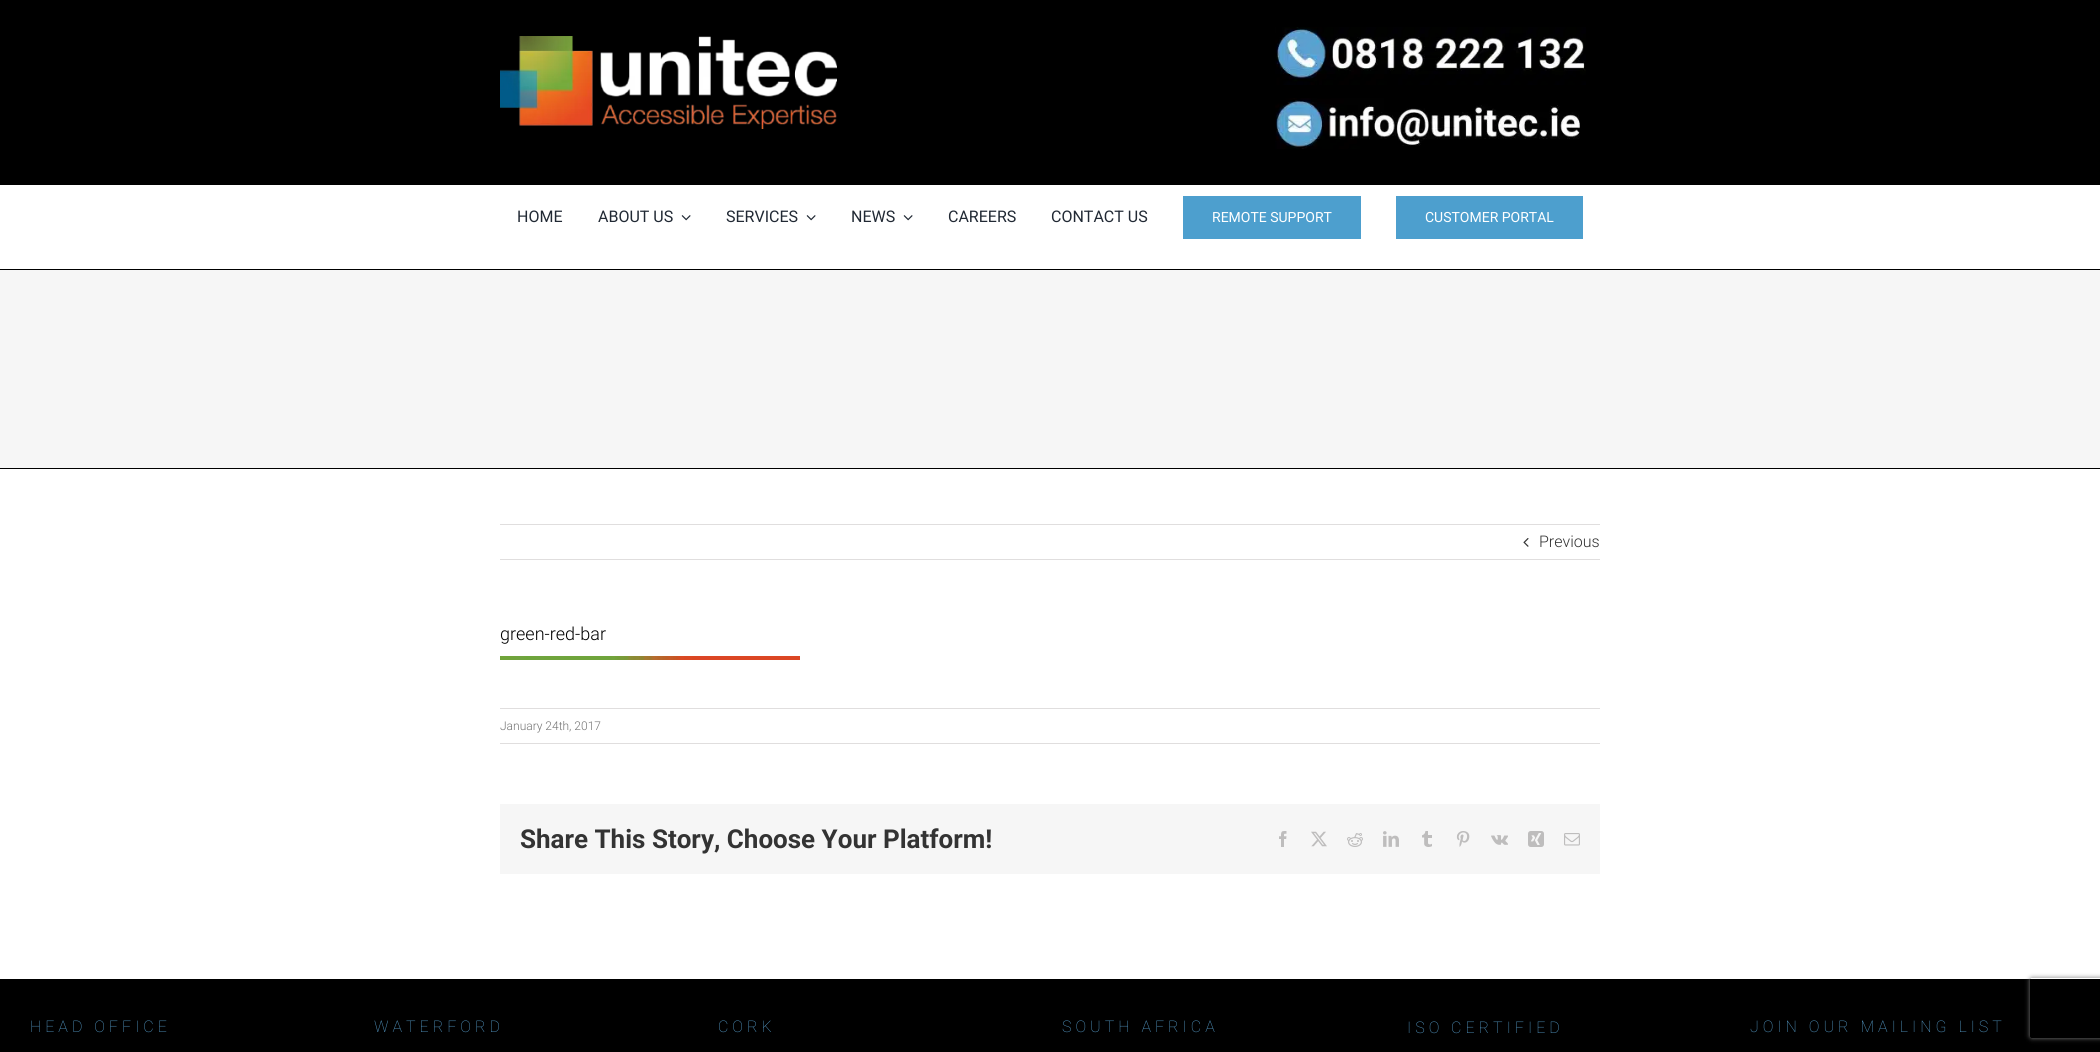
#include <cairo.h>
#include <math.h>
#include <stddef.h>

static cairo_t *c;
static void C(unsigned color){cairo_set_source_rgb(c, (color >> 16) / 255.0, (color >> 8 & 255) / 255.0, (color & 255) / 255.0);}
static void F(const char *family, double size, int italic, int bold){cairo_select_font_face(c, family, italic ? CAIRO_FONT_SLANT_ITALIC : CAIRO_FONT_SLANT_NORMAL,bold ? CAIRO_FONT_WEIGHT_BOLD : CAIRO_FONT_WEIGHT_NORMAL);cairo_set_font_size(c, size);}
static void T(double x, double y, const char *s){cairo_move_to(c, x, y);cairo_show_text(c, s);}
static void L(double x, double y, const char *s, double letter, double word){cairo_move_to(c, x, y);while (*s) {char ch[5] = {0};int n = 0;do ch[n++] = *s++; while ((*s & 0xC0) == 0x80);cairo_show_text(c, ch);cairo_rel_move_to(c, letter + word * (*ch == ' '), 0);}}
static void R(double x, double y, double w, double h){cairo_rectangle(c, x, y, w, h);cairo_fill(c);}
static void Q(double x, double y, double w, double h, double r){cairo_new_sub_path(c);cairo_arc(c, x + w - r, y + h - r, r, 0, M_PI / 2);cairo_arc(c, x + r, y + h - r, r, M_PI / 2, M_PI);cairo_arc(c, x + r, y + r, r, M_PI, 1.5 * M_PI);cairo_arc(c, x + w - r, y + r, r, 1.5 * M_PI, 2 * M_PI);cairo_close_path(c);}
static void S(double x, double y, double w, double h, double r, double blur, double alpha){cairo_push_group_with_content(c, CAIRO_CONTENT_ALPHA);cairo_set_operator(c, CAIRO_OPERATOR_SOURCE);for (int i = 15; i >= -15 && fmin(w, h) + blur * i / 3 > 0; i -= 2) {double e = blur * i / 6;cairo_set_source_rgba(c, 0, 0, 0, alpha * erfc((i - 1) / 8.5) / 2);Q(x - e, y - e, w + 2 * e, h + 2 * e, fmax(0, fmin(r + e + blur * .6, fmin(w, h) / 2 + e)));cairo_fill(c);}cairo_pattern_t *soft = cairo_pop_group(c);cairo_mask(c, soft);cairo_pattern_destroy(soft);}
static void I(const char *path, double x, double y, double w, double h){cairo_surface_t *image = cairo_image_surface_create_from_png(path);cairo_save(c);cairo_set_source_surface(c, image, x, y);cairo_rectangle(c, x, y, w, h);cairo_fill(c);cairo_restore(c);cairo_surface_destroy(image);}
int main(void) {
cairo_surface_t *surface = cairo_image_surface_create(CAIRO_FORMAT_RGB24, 2100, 1052);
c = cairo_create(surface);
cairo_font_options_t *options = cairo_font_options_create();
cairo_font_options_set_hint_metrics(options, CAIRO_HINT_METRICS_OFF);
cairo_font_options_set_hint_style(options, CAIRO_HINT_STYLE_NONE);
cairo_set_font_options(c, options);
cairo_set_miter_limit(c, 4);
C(0xffffff);
cairo_paint(c);
C(0x000000);
R(0,0,2100,185);
I("1.png",500,36,337,93);
I("2.png",1275,27,311,58);
I("3.png",1275,98,305,51);
F("Roboto",16,0,0);
C(0x212934);
T(517,222,"HOME");
T(598,222,"ABOUT US");
I("4.png",681,215,10,6);
T(726,222,"SERVICES");
I("4.png",806,215,10,6);
T(851,222,"NEWS");
I("4.png",903,215,10,6);
T(948,222,"CAREERS");
T(1051,222,"CONTACT US");
C(0x4d9fce);
R(1183,196,178,43);
F("Roboto",14,0,0);
C(0xffffff);
T(1212,222,"REMOTE SUPPORT");
C(0x4d9fce);
R(1396,196,187,43);
C(0xffffff);
T(1425,222,"CUSTOMER PORTAL");
C(0xf6f6f6);
R(0,270,2100,198);
C(0x000000);
R(0,269,2100,1);
R(0,468,2100,1);
C(0xe0dede);
R(500,524,1100,1);
R(500,559,1100,1);
I("5.png",1523,538,6,9);
F("Roboto Light",16,0,0);
C(0x333333);
T(1539,547,"Previous");
F("Roboto Light",18,0,0);
C(0x000000);
T(500,640,"green-red-bar");
I("6.png",500,656,300,4);
C(0xe0dede);
R(500,708,1100,1);
R(500,743,1100,1);
F("Roboto Light",12,0,0);
C(0x747474);
T(500,730,"January 24th, 2017");
C(0xf6f6f6);
R(500,804,1100,70);
F("Roboto",26,0,1);
C(0x333333);
T(520,848,"Share This Story, Choose Your Platform!");
I("7.png",1279,831,8,16);
I("8.png",1311,831,16,16);
I("9.png",1347,833,16,14);
I("10.png",1383,831,16,16);
I("11.png",1422,831,10,16);
I("12.png",1456,831,14,16);
I("13.png",1491,835,17,10);
I("14.png",1528,831,16,16);
I("15.png",1564,833,16,13);
C(0x000000);
R(0,979,2100,73);
F("Roboto Thin",16,0,0);
C(0x58a1d0);
L(30,1032,"HEAD OFFICE",4,0);
L(374,1032,"WATERFORD",4,0);
L(718,1032,"CORK",4,0);
L(1062,1032,"SOUTH AFRICA",4,0);
L(1407,1033,"ISO CERTIFIED",4,0);
L(1750,1032,"JOIN OUR MAILING LIST",4,0);
cairo_save(c);
cairo_set_fill_rule(c,CAIRO_FILL_RULE_EVEN_ODD);
cairo_new_path(c);
cairo_move_to(c,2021,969);
cairo_line_to(c,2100,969);
cairo_line_to(c,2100,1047);
cairo_line_to(c,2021,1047);
cairo_close_path(c);
cairo_move_to(c,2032,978);
cairo_line_to(c,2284,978);
cairo_curve_to(c,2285,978,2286,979,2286,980);
cairo_line_to(c,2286,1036);
cairo_curve_to(c,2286,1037,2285,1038,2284,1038);
cairo_line_to(c,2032,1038);
cairo_curve_to(c,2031,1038,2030,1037,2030,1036);
cairo_line_to(c,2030,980);
cairo_curve_to(c,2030,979,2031,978,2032,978);
cairo_close_path(c);
cairo_clip(c);
C(0x808080);
S(2030,978,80,60,2,2.5,1);
cairo_restore(c);
cairo_surface_write_to_png(surface, "o.png");
cairo_font_options_destroy(options);
cairo_destroy(c);
cairo_surface_destroy(surface);
return 0;
}
